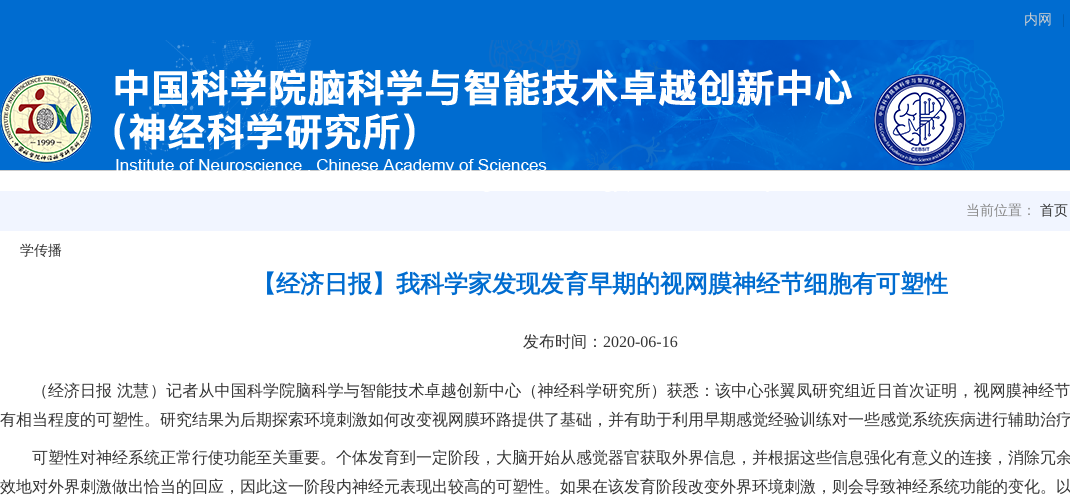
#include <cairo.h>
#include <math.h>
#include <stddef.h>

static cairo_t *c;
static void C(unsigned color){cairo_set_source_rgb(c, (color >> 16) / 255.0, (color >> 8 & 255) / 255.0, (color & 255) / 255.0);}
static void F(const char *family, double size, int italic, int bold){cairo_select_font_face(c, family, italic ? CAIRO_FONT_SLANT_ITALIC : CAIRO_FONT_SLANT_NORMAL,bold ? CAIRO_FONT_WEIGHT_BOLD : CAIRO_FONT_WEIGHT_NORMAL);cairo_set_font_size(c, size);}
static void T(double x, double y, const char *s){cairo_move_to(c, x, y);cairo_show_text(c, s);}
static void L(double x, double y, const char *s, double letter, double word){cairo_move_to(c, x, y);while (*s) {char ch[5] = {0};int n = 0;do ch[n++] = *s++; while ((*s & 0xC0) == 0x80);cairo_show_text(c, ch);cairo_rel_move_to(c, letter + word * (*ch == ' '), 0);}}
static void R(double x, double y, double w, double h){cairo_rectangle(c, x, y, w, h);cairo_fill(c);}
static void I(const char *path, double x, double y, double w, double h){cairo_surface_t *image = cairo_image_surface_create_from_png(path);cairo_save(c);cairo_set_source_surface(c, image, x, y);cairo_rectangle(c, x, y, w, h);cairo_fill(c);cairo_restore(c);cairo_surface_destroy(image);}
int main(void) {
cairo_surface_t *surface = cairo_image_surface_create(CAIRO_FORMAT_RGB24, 1070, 495);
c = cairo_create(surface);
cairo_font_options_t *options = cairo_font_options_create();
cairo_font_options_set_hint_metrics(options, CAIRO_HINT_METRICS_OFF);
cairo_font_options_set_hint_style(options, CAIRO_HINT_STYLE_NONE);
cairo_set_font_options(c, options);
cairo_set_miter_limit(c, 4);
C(0xffffff);
cairo_paint(c);
C(0xcccccc);
R(0,170,1070,1);
C(0x006cd0);
R(0,0,1070,40);
F("WenQuanYi Zen Hei Medium",14,0,0);
C(0xcfcfcf);
T(1024,24,"内网");
F("Liberation Serif",14,0,0);
C(0x0055a6);
T(1062,24,"|");
I("1.png",0,40,1070,130);
C(0xf1f5ff);
R(0,191,1070,40);
I("2.png",0,69,966,123);
F("WenQuanYi Zen Hei Medium",14,0,0);
C(0x888888);
T(966,215,"当前位置：");
C(0x333333);
T(1040,215,"首页");
T(20,255,"学传播");
F("WenQuanYi Zen Hei",24,0,1);
C(0x006cd0);
T(252,292,"【经济日报】我科学家发现发育早期的视网膜神经节细胞有可塑性");
F("WenQuanYi Zen Hei Medium",16,0,0);
C(0x333333);
T(523,347,"发布时间：");
F("Liberation Serif",16,0,0);
T(603,347,"2020-06-16");
F("WenQuanYi Zen Hei Medium",16,0,0);
T(32,396,"（经济日报");
T(117,396,"沈慧");
L(150,396,"）记者从中国科学院脑科学与智能技术卓越创新中心（神经科学研究所）获悉：该中心张翼凤研究组近日首次证明，视网膜神经节",.15,0);
T(0,425,"有相当程度的可塑性。研究结果为后期探索环境刺激如何改变视网膜环路提供了基础，并有助于利用早期感觉经验训练对一些感觉系统疾病进行辅助治疗");
T(32,463,"可塑性对神经系统正常行使功能至关重要。个体发育到一定阶段，大脑开始从感觉器官获取外界信息，并根据这些信息强化有意义的连接，消除冗余");
T(0,492,"效地对外界刺激做出恰当的回应，因此这一阶段内神经元表现出较高的可塑性。如果在该发育阶段改变外界环境刺激，则会导致神经系统功能的变化。以");
cairo_surface_write_to_png(surface, "o.png");
cairo_font_options_destroy(options);
cairo_destroy(c);
cairo_surface_destroy(surface);
return 0;
}
